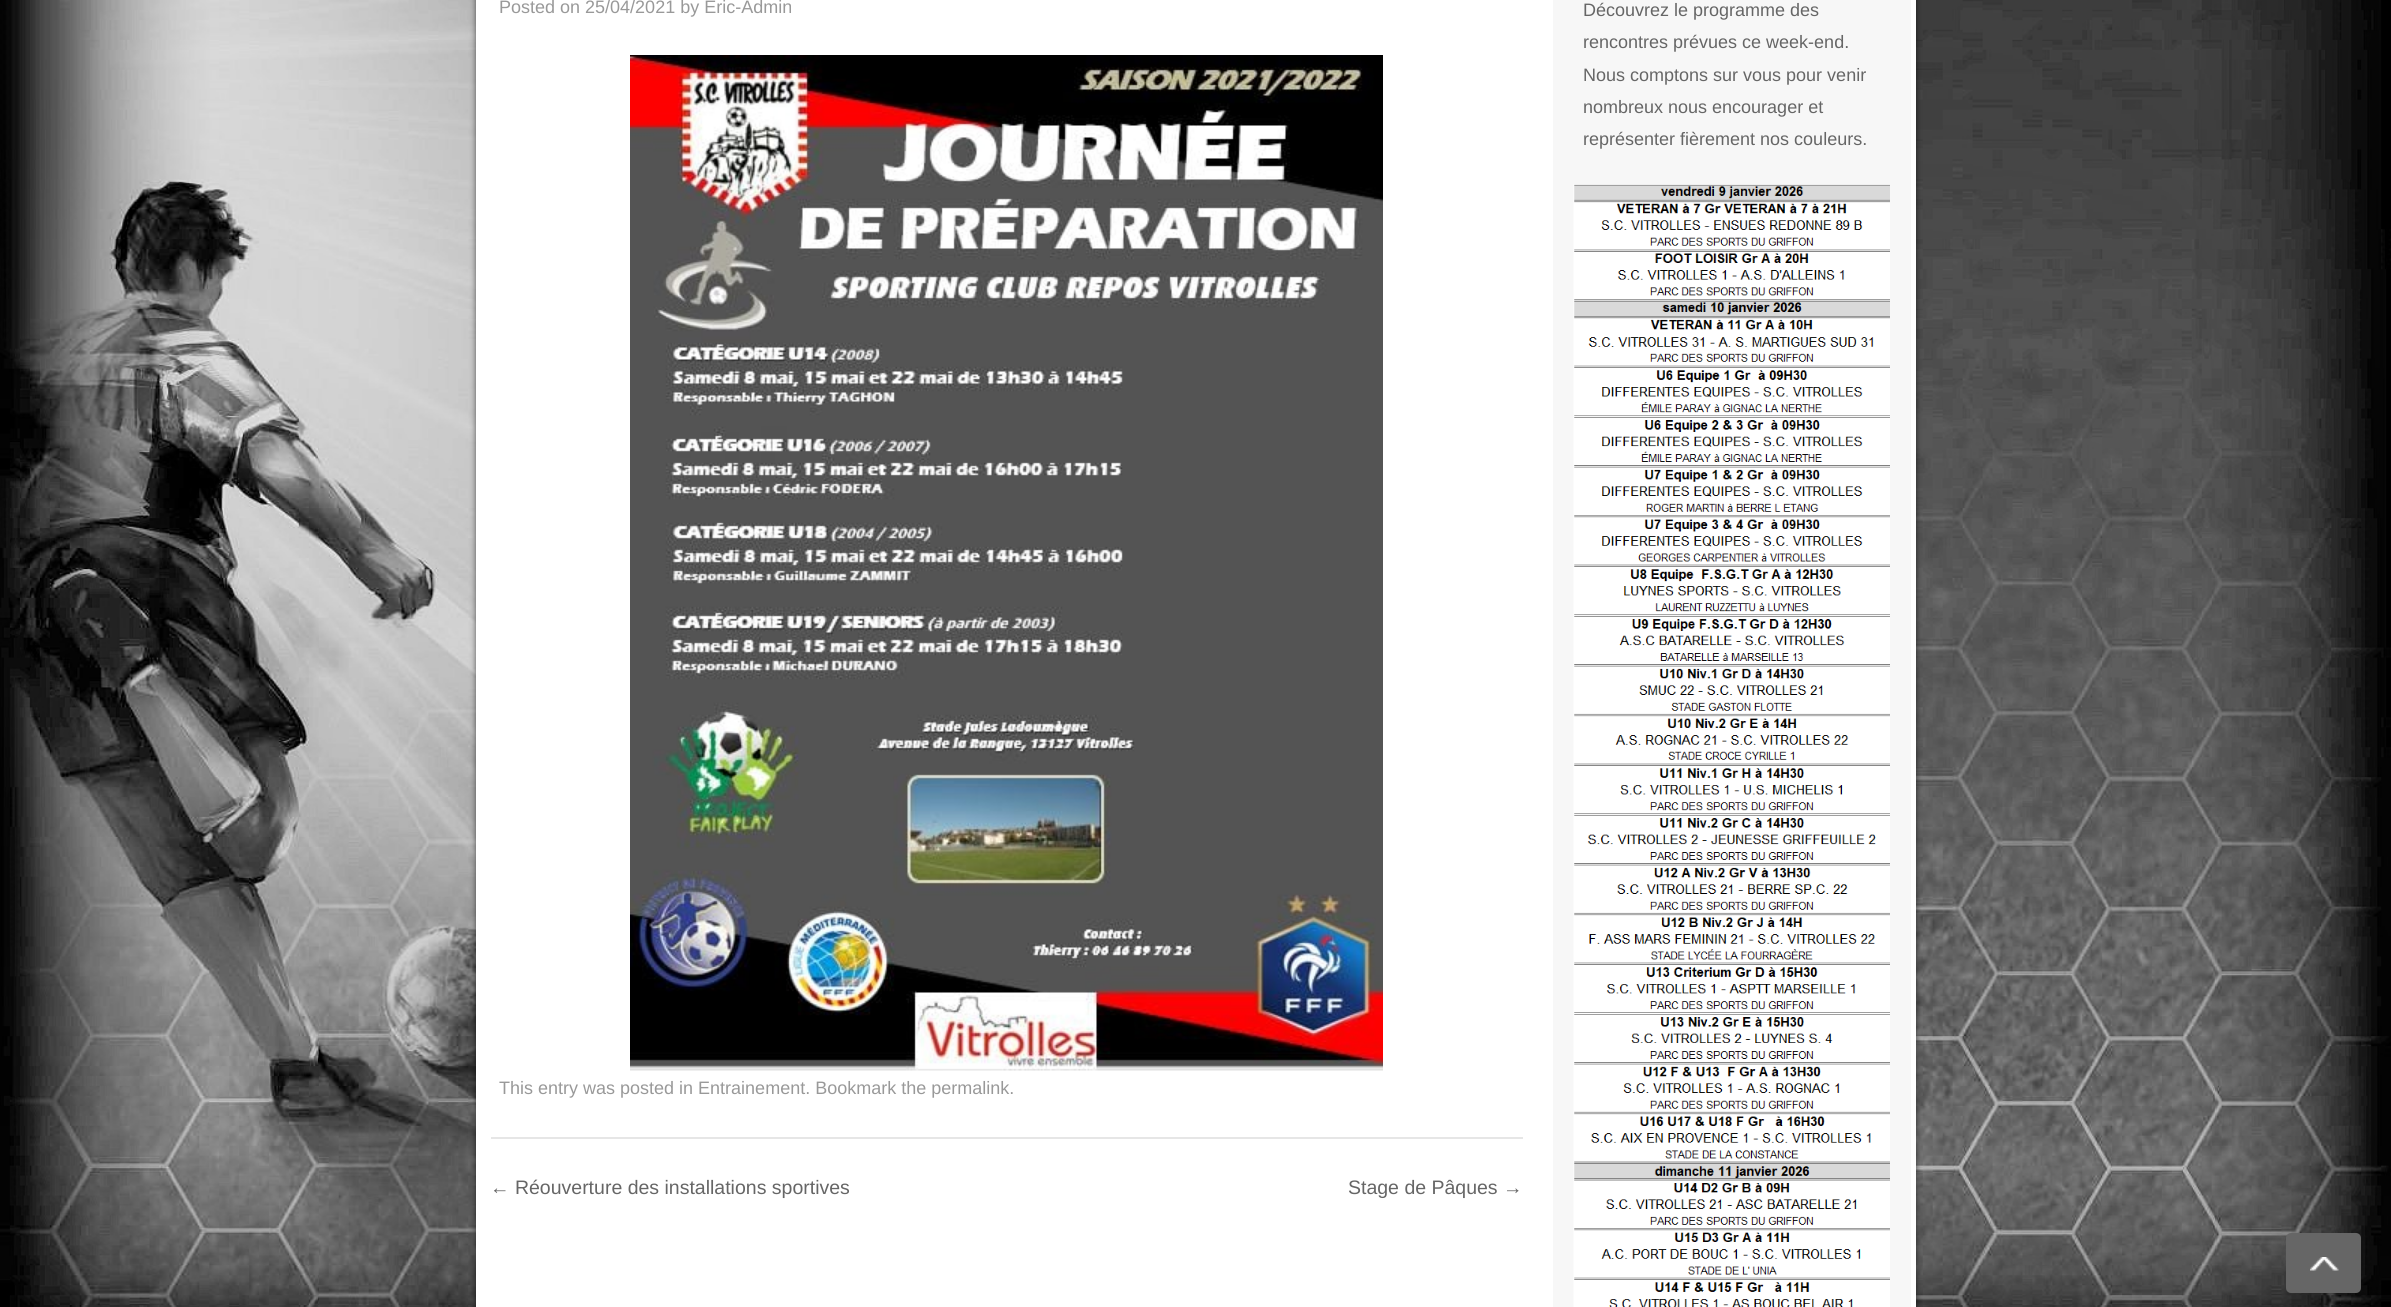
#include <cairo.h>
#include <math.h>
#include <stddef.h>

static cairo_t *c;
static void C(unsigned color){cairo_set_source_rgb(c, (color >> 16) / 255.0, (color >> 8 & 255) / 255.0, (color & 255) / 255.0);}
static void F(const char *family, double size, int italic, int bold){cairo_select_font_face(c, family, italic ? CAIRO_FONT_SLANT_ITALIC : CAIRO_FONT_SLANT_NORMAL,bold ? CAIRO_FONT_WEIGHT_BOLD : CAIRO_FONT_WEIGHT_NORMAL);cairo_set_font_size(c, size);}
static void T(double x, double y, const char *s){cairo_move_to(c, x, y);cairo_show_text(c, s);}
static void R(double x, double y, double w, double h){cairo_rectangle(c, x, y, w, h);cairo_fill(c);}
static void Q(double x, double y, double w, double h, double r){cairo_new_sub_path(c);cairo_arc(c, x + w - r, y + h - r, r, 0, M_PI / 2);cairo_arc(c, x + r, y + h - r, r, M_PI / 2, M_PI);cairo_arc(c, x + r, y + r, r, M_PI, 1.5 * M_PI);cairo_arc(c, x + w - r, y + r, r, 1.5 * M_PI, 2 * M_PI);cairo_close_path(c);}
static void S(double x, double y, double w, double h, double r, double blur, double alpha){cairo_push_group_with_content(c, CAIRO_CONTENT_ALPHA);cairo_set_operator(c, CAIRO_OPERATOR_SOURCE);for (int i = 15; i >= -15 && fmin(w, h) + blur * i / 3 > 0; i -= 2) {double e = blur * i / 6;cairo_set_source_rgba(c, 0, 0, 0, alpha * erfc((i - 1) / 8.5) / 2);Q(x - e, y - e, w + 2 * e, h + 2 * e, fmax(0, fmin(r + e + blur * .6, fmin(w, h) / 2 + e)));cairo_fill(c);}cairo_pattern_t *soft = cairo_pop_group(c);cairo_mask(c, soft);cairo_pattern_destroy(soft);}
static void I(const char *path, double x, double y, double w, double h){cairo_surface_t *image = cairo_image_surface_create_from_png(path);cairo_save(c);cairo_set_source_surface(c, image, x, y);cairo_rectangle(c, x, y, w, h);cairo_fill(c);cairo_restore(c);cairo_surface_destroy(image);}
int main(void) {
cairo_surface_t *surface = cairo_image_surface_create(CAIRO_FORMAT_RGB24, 2391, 1307);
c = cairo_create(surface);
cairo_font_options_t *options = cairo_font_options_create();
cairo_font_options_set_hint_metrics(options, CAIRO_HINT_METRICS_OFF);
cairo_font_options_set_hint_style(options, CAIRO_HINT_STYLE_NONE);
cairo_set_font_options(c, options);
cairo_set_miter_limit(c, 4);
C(0xffffff);
cairo_paint(c);
I("1.png",0,0,2391,1307);
C(0x000000);
S(476,-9,1440,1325,0,3,.6);
C(0xffffff);
R(476,0,1440,1307);
C(0xe6e6e6);
R(491,1137,1032,2);
F("Liberation Sans",18,0,0);
C(0x999999);
T(499,13,"Posted on 25/04/2021 by Eric-Admin");
I("2.png",630,55,753,1016);
T(499,1094,"This entry was posted in Entrainement. Bookmark the permalink.");
F("Liberation Sans",19.5,0,0);
C(0x666666);
T(490,1194,"← Réouverture des installations sportives");
T(1348,1194,"Stage de Pâques →");
C(0xf7f7f7);
R(1553,0,358,1307);
F("Liberation Sans",18,0,0);
C(0x666666);
T(1583,16,"Découvrez le programme des");
T(1583,48,"rencontres prévues ce week-end.");
T(1583,81,"Nous comptons sur vous pour venir");
T(1583,113,"nombreux nous encourager et");
T(1583,145,"représenter fièrement nos couleurs.");
I("3.png",1573,184,317,1123);
Q(2286,1233,75,60,5);
cairo_fill(c);
I("4.png",2310,1257,29,14);
cairo_surface_write_to_png(surface, "o.png");
cairo_font_options_destroy(options);
cairo_destroy(c);
cairo_surface_destroy(surface);
return 0;
}
